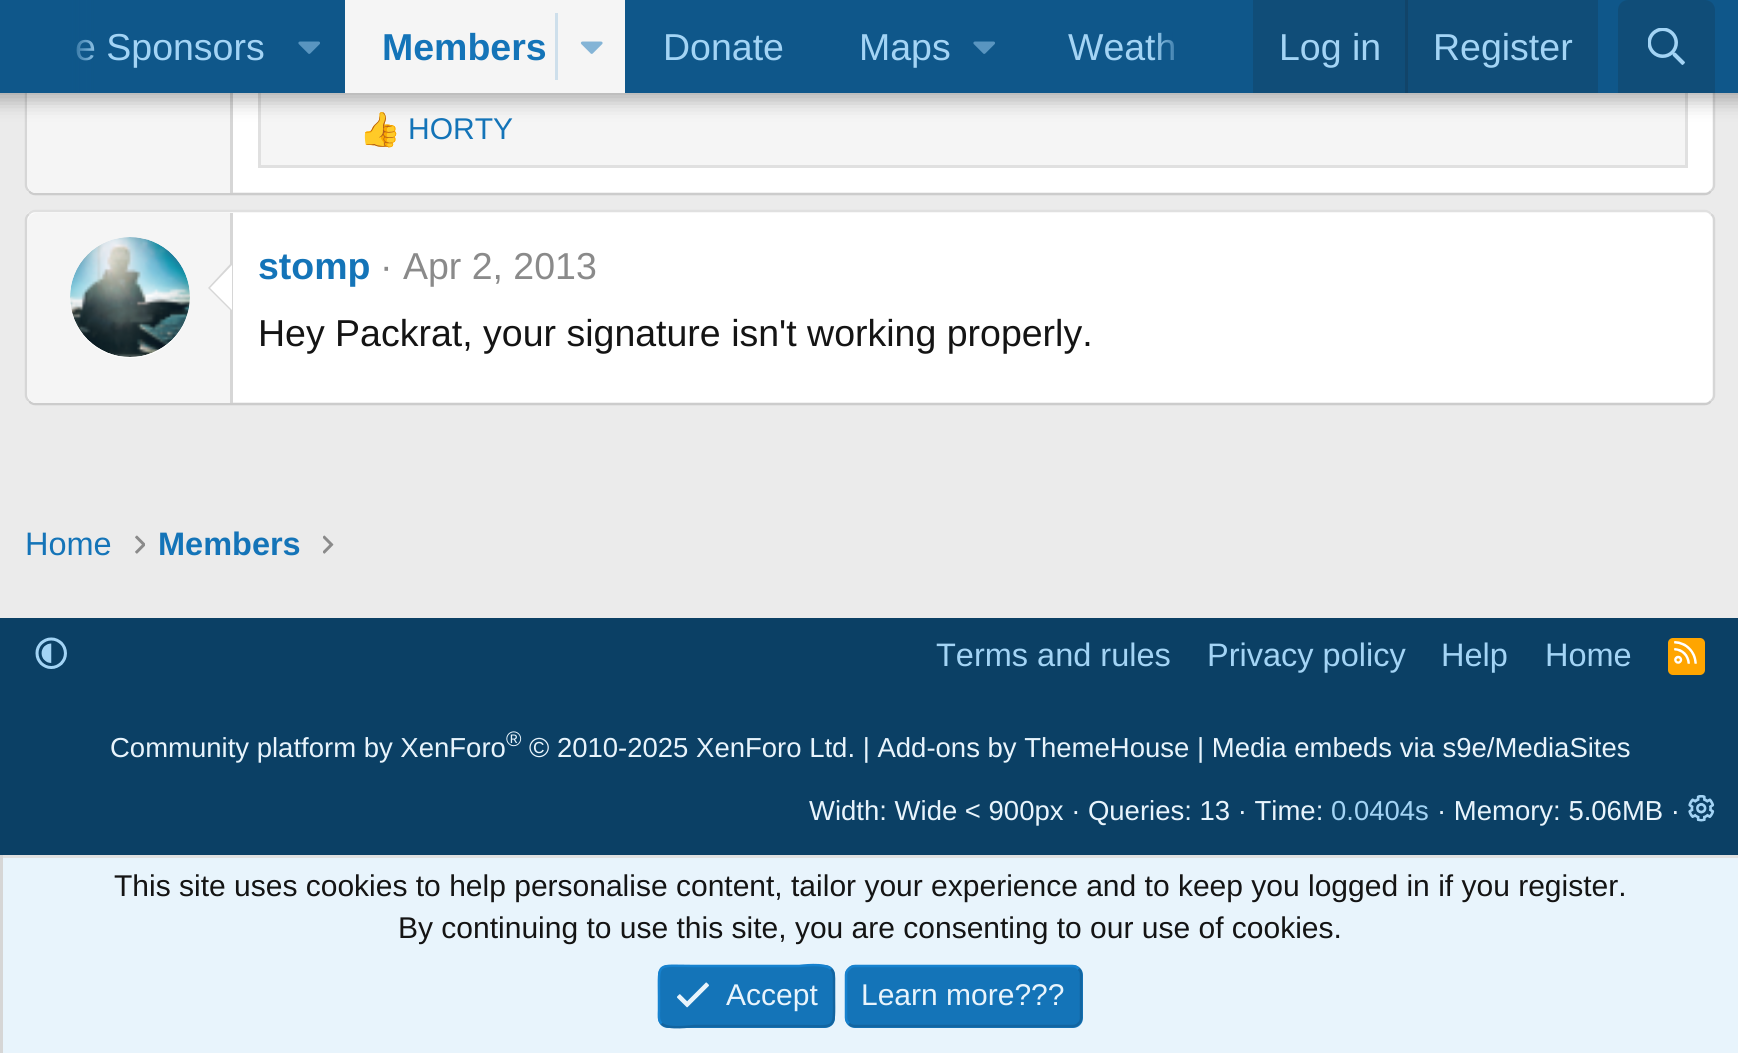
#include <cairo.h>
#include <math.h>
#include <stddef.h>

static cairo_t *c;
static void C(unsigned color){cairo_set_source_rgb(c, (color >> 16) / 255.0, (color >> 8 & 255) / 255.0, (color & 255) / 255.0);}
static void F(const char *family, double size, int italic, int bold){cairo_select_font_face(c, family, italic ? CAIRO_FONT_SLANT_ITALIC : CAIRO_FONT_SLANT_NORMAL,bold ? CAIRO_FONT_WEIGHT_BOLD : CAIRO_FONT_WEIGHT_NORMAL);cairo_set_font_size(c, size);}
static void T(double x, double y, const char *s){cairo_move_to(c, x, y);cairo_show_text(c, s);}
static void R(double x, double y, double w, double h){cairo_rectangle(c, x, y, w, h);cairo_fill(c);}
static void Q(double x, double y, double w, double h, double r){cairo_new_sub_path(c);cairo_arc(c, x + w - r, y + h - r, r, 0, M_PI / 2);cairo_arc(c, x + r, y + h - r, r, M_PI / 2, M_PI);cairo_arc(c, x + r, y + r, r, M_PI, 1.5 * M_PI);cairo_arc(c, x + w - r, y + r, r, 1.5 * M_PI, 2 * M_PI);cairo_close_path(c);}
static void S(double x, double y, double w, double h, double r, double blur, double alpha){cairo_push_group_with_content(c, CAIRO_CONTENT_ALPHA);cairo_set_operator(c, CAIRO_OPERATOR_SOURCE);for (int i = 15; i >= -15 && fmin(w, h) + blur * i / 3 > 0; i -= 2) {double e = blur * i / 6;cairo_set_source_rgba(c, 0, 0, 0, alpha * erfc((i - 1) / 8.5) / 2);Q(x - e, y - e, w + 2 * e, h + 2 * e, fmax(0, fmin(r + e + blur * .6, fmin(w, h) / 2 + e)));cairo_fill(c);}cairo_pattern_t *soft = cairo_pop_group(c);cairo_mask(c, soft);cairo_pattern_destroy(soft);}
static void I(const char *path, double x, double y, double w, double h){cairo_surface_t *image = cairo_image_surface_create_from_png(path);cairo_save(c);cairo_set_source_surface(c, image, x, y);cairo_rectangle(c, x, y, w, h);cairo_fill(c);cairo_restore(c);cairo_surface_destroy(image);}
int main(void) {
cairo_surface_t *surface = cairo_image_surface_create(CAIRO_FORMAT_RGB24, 1738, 1053);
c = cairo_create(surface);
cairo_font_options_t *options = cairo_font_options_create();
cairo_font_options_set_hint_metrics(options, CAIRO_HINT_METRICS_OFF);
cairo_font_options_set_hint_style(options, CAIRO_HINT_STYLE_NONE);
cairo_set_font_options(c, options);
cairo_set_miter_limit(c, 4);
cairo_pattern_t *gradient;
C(0xebebeb);
cairo_paint(c);
C(0xffffff);
Q(25,-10,1690,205,10);
cairo_fill(c);
cairo_new_path(c);
cairo_move_to(c,1711,-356);
cairo_curve_to(c,1713,-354.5,1714,-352.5,1714,-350);
cairo_line_to(c,1714,185);
cairo_curve_to(c,1714,187.5,1713,189.5,1711,191);
C(0xd6d6d6);
cairo_set_line_width(c,2.5);
cairo_stroke(c);
cairo_new_path(c);
cairo_move_to(c,1711,191);
cairo_curve_to(c,1709.5,193,1707.5,194,1705,194);
cairo_line_to(c,35,194);
cairo_curve_to(c,32.5,194,30.5,193,29,191);
C(0xcccccc);
cairo_stroke(c);
cairo_new_path(c);
cairo_move_to(c,29,191);
cairo_curve_to(c,27,189.5,26,187.5,26,185);
cairo_line_to(c,26,-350);
cairo_curve_to(c,26,-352.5,27,-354.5,29,-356);
C(0xd6d6d6);
cairo_stroke(c);
C(0xf5f5f5);
cairo_new_path(c);
cairo_move_to(c,36,-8);
cairo_line_to(c,233,-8);
cairo_line_to(c,233,193);
cairo_line_to(c,36,193);
cairo_curve_to(c,31.5,193,28,189.5,28,185);
cairo_line_to(c,28,0);
cairo_curve_to(c,28,-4.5,31.5,-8,36,-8);
cairo_close_path(c);
cairo_fill(c);
C(0xd6d6d6);
R(230,93,3,100);
C(0xf5f5f5);
R(261,93,1424,72);
cairo_rectangle(c,259.5,-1.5,1427,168);
C(0xe0e0e0);
cairo_set_line_width(c,3);
cairo_stroke(c);
I("4.png",364,112,33,36);
C(0x000000);
S(-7,-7,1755,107,0,10,.3);
C(0x0f578a);
R(66,0,1672,93);
F("Liberation Sans",37.5,0,0);
C(0xa3d4f5);
T(75,60,"e Sponsors");
gradient = cairo_pattern_create_linear(0,46,100,46);
cairo_pattern_add_color_stop_rgba(gradient,.66,0.059,0.341,0.541,1);
cairo_pattern_add_color_stop_rgba(gradient,1,0.059,0.341,0.541,0);
cairo_set_source(c,gradient);
cairo_pattern_destroy(gradient);
R(0,0,95,93);
I("1.png",298,41,22,13);
C(0xf5f5f5);
R(345,0,280,93);
F("Liberation Sans",37.5,0,1);
C(0x1474b8);
T(382,60,"Members");
C(0xcedfeb);
R(555,13,3,67);
I("2.png",580,41,23,13);
F("Liberation Sans",37.5,0,0);
C(0xa3d4f5);
T(663,60,"Donate");
T(859,60,"Maps");
I("1.png",973,41,22,13);
T(1068,60,"Weath");
gradient = cairo_pattern_create_linear(1153,46,1253,46);
cairo_pattern_add_color_stop_rgba(gradient,0,0.059,0.341,0.541,0);
cairo_pattern_add_color_stop_rgba(gradient,.33,0.059,0.341,0.541,1);
cairo_set_source(c,gradient);
cairo_pattern_destroy(gradient);
R(1154,32,20,28);
C(0x104d78);
R(1253,0,345,93);
C(0xa3d4f5);
T(1279,60,"Log in");
C(0x114469);
R(1405,0,3,93);
C(0xa3d4f5);
T(1433,60,"Register");
C(0x104d78);
cairo_new_path(c);
cairo_move_to(c,1628,0);
cairo_line_to(c,1705,0);
cairo_curve_to(c,1710.5,0,1715,4.5,1715,10);
cairo_line_to(c,1715,93);
cairo_line_to(c,1618,93);
cairo_line_to(c,1618,10);
cairo_curve_to(c,1618,4.5,1622.5,0,1628,0);
cairo_close_path(c);
cairo_fill(c);
I("3.png",1648,28,37,37);
F("Liberation Sans",30,0,0);
C(0x1474b8);
T(408,139,"HORTY");
C(0xffffff);
Q(25,210,1690,195,10);
cairo_fill(c);
cairo_new_path(c);
cairo_move_to(c,29,214);
cairo_curve_to(c,30.5,212,32.5,211,35,211);
cairo_line_to(c,1705,211);
cairo_curve_to(c,1707.5,211,1709.5,212,1711,214);
C(0xe0e0e0);
cairo_set_line_width(c,2.5);
cairo_stroke(c);
cairo_new_path(c);
cairo_move_to(c,1711,214);
cairo_curve_to(c,1713,215.5,1714,217.5,1714,220);
cairo_line_to(c,1714,395);
cairo_curve_to(c,1714,397.5,1713,399.5,1711,401);
C(0xd6d6d6);
cairo_stroke(c);
cairo_new_path(c);
cairo_move_to(c,1711,401);
cairo_curve_to(c,1709.5,403,1707.5,404,1705,404);
cairo_line_to(c,35,404);
cairo_curve_to(c,32.5,404,30.5,403,29,401);
C(0xcccccc);
cairo_stroke(c);
cairo_new_path(c);
cairo_move_to(c,29,401);
cairo_curve_to(c,27,399.5,26,397.5,26,395);
cairo_line_to(c,26,220);
cairo_curve_to(c,26,217.5,27,215.5,29,214);
C(0xd6d6d6);
cairo_stroke(c);
C(0xf5f5f5);
cairo_new_path(c);
cairo_move_to(c,36,213);
cairo_line_to(c,233,213);
cairo_line_to(c,233,403);
cairo_line_to(c,36,403);
cairo_curve_to(c,31.5,403,28,399.5,28,395);
cairo_line_to(c,28,221);
cairo_curve_to(c,28,216.5,31.5,213,36,213);
cairo_close_path(c);
cairo_fill(c);
C(0xd6d6d6);
R(230,213,3,190);
C(0xffffff);
cairo_arc(c,130,298,60,0,2 * M_PI);
cairo_fill(c);
I("5.png",70,237,120,120);
C(0xd6d6d6);
cairo_new_path(c);
cairo_move_to(c,232,262);
cairo_line_to(c,232,312);
cairo_line_to(c,208,288);
cairo_close_path(c);
cairo_fill(c);
C(0xffffff);
cairo_new_path(c);
cairo_move_to(c,232,265);
cairo_line_to(c,232,310);
cairo_line_to(c,210,288);
cairo_close_path(c);
cairo_fill(c);
F("Liberation Sans",37.5,0,1);
C(0x1474b8);
T(258,279,"stomp");
F("Liberation Sans",37.5,0,0);
C(0x8a8a8a);
T(380,279,"· Apr 2, 2013");
C(0x141414);
T(258,346,"Hey Packrat, your signature isn't working properly.");
F("Liberation Sans",32.5,0,0);
C(0x1474b8);
T(25,555,"Home");
I("6.png",135,535,10,19);
F("Liberation Sans",32.5,0,1);
T(158,555,"Members");
I("7.png",323,535,11,19);
C(0x0b4065);
R(0,618,1738,237);
I("8.png",35,637,32,32);
F("Liberation Sans",32.5,0,0);
C(0xa3d4f5);
T(936,666,"Terms and rules");
T(1207,666,"Privacy policy");
T(1441,666,"Help");
T(1545,666,"Home");
C(0xffa500);
Q(1668,638,37,37,5);
cairo_fill(c);
I("9.png",1674,641,23,23);
F("Liberation Sans",27.5,0,0);
C(0xe8f4fc);
T(110,757,"Community platform by XenForo");
F("Liberation Sans",21,0,0);
T(506,746,"®");
F("Liberation Sans",27.5,0,0);
T(529,757,"© 2010-2025 XenForo Ltd. | Add-ons by ThemeHouse | Media embeds via s9e/MediaSites");
T(809,820,"Width: Wide < 900px · Queries: 13 · Time:");
C(0xa3d4f5);
T(1331,820,"0.0404s");
C(0xe8f4fc);
T(1437,820,"· Memory: 5.06MB ·");
I("10.png",1688,795,27,27);
R(3,858,1735,195);
C(0xe0e0e0);
R(0,855,1738,3);
C(0xd6d6d6);
R(0,855,3,198);
F("Liberation Sans",30,0,0);
C(0x141414);
T(114,896,"This site uses cookies to help personalise content, tailor your experience and to keep you logged in if you register.");
T(398,938,"By continuing to use this site, you are consenting to our use of cookies.");
C(0x1474b8);
Q(658,965,177,63,10);
cairo_fill(c);
cairo_new_path(c);
cairo_move_to(c,831,969);
cairo_curve_to(c,834.5,972.5,834,977.5,834,982);
cairo_line_to(c,834,996);
cairo_curve_to(c,834,1031.5,837,1026,799,1026);
cairo_line_to(c,694,1026);
cairo_curve_to(c,692.5,1026,667.5,1030,661.5,1023.5);
C(0x1265a1);
cairo_stroke(c);
cairo_new_path(c);
cairo_move_to(c,661.5,1023.5);
cairo_curve_to(c,658,1020,659,1015,659,1010.5);
cairo_line_to(c,659,996);
cairo_curve_to(c,659,961,655.5,966,694,966);
cairo_line_to(c,799,966);
cairo_curve_to(c,800,966,825,962.5,831,969);
C(0x1782cf);
cairo_stroke(c);
I("11.png",677,982,32,26);
C(0xe8f4fc);
T(726,1005,"Accept");
C(0x1474b8);
Q(845,965,238,63,10);
cairo_fill(c);
cairo_new_path(c);
cairo_move_to(c,1078.5,969);
cairo_curve_to(c,1080.5,970.5,1081,972.5,1081,975);
cairo_line_to(c,1081,1017.5);
cairo_curve_to(c,1081,1020,1080.5,1022,1078.5,1023.5);
cairo_curve_to(c,1077,1025.5,1075,1026,1072.5,1026);
cairo_line_to(c,855,1026);
cairo_curve_to(c,852.5,1026,850.5,1025.5,849,1023.5);
C(0x1265a1);
cairo_stroke(c);
cairo_new_path(c);
cairo_move_to(c,849,1023.5);
cairo_curve_to(c,847,1022,846,1020,846,1017.5);
cairo_line_to(c,846,975);
cairo_curve_to(c,846,972.5,847,970.5,849,969);
cairo_curve_to(c,850.5,967,852.5,966,855,966);
cairo_line_to(c,1072.5,966);
cairo_curve_to(c,1075,966,1077,967,1078.5,969);
C(0x1782cf);
cairo_stroke(c);
C(0xe8f4fc);
T(861,1005,"Learn more?\077?");
cairo_surface_write_to_png(surface, "o.png");
cairo_font_options_destroy(options);
cairo_destroy(c);
cairo_surface_destroy(surface);
return 0;
}
